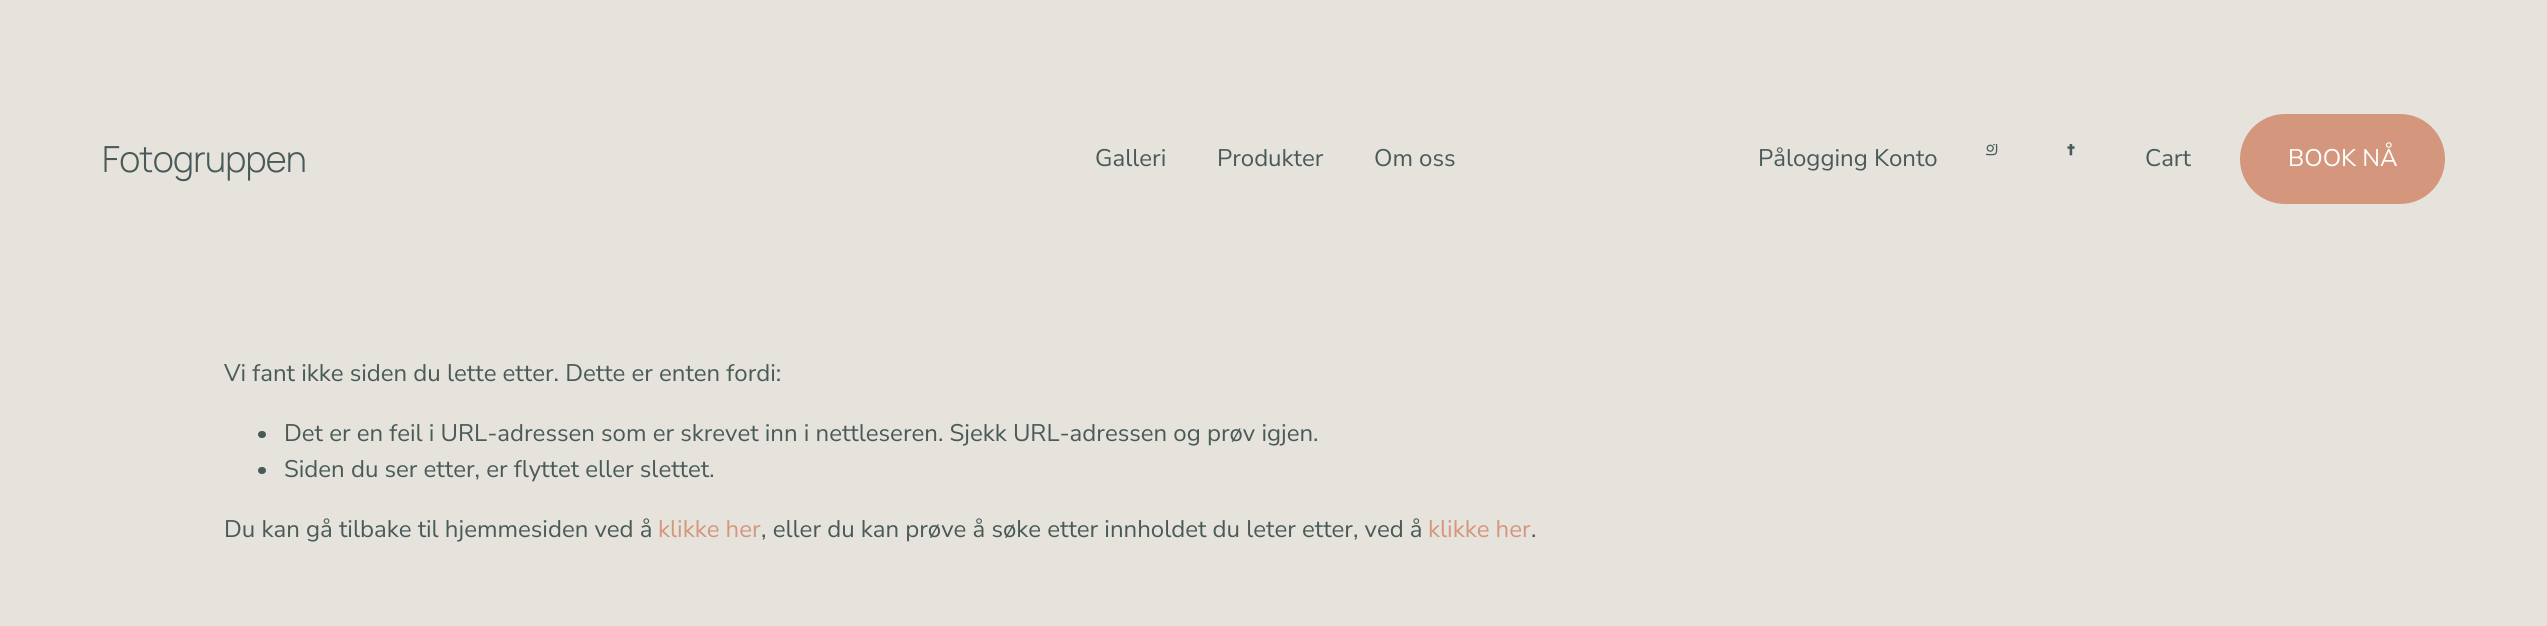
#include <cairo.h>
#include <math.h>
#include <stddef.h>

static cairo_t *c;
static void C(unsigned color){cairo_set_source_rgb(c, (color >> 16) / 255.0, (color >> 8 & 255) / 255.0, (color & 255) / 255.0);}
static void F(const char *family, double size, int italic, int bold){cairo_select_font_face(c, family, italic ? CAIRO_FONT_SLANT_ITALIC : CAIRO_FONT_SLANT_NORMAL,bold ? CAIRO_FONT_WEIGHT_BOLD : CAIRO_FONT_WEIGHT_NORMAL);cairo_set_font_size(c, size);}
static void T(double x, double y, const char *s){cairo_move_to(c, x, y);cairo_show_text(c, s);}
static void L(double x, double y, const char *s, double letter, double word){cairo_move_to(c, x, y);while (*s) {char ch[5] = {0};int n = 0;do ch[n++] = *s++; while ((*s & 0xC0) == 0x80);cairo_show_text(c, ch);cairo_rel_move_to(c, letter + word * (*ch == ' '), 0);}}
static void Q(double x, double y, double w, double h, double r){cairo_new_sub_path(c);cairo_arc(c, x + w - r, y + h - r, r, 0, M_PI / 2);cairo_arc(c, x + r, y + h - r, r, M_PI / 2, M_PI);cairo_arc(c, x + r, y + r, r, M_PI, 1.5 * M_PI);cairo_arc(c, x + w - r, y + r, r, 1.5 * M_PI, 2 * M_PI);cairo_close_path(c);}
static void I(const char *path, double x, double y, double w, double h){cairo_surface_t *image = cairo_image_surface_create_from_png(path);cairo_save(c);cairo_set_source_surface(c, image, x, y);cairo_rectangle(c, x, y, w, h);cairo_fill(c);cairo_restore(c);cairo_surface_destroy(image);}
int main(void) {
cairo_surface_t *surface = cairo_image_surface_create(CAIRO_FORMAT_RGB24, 2547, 626);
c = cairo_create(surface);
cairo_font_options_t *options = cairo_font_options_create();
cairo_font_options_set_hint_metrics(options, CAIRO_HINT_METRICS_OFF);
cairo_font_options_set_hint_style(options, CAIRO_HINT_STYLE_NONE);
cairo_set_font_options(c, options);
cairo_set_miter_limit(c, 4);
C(0xe5e3dc);
cairo_paint(c);
F("Manrope Light",36,0,0);
C(0x495a58);
L(102,172,"Fotogruppen",-.75,0);
F("Nunito Sans",24,0,0);
T(1095,166,"Galleri");
T(1217,166,"Produkter");
T(1374,166,"Om oss");
T(1758,166,"Pålogging Konto");
I("1.png",1986,144,12,12);
I("2.png",2067,144,8,12);
T(2145,166,"Cart");
C(0xd4967d);
Q(2240,114,205,90,45);
cairo_fill(c);
C(0xffffff);
T(2288,166,"BOOK NÅ");
C(0x495a58);
T(224,381,"Vi fant ikke siden du lette etter. Dette er enten fordi:");
Q(258,431,8,7,3.5);
cairo_fill(c);
T(284,441,"Det er en feil i URL-adressen som er skrevet inn i nettleseren. Sjekk URL-adressen og prøv igjen.");
Q(258,467,8,7,3.5);
cairo_fill(c);
T(284,477,"Siden du ser etter, er flyttet eller slettet.");
T(224,537,"Du kan gå tilbake til hjemmesiden ved å");
C(0xd4967d);
T(658,537,"klikke her");
C(0x495a58);
T(761,537,", eller du kan prøve å søke etter innholdet du leter etter, ved å");
C(0xd4967d);
T(1428,537,"klikke her");
C(0x495a58);
T(1531,537,".");
cairo_surface_write_to_png(surface, "o.png");
cairo_font_options_destroy(options);
cairo_destroy(c);
cairo_surface_destroy(surface);
return 0;
}
